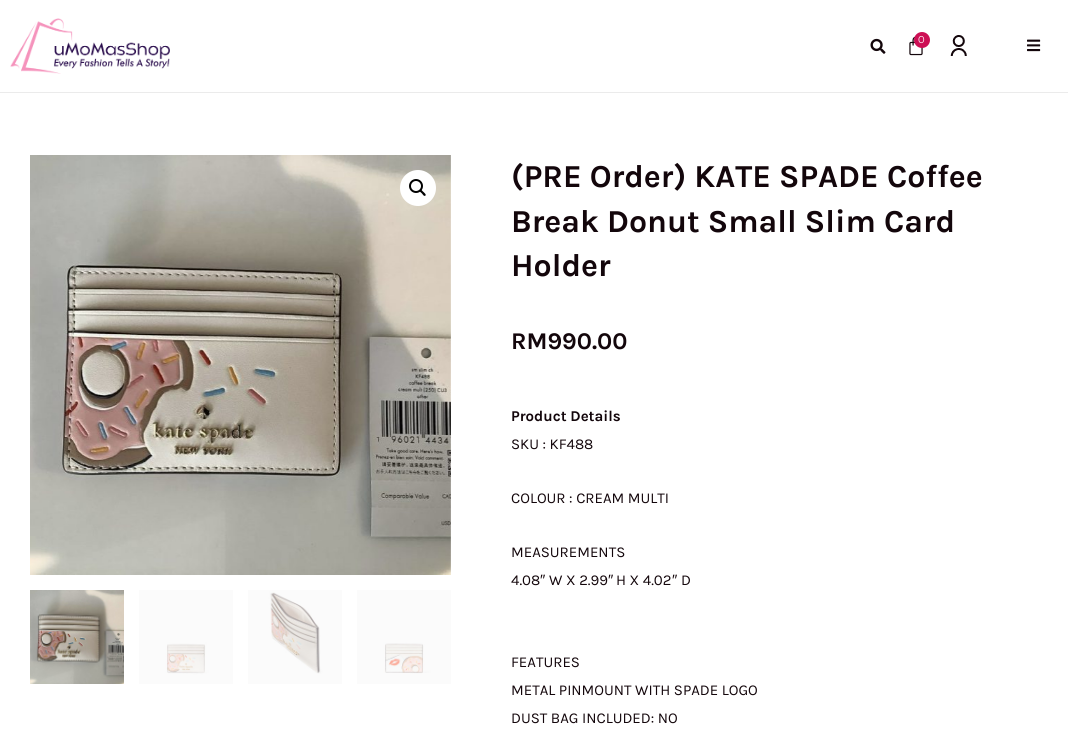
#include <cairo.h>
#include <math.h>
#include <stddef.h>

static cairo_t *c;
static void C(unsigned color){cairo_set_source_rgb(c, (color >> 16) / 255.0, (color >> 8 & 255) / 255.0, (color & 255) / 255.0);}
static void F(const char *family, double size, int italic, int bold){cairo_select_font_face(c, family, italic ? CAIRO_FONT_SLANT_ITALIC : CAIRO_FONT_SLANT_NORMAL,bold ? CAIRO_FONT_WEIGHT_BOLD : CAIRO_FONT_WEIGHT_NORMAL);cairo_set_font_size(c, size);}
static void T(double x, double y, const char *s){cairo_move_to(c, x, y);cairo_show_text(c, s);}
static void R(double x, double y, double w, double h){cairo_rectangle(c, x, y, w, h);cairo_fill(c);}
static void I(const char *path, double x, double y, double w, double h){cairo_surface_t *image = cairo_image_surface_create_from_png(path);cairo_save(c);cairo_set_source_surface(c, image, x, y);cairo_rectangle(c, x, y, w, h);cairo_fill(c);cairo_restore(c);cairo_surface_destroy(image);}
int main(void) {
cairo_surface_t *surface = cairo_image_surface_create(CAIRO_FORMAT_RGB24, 1068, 736);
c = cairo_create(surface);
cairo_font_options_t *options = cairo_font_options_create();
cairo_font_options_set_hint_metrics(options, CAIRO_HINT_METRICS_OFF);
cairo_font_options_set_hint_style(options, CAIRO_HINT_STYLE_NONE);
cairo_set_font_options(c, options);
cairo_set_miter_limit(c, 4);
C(0xffffff);
cairo_paint(c);
C(0xebebeb);
R(0,92,1068,1);
I("1.png",10,18,160,56);
I("2.png",870,38,16,16);
I("3.png",909,36,14,20);
C(0xcd1055);
cairo_arc(c,922,40,8,0,2 * M_PI);
cairo_fill(c);
F("Montserrat Thin",10,0,0);
C(0xffffff);
T(918,43,"0");
I("4.png",950,35,17,21);
I("5.png",1027,39,14,13);
I("6.png",30,155,421,420);
cairo_arc(c,418,188,18,0,2 * M_PI);
cairo_fill(c);
cairo_arc(c,416,186,6,0,2 * M_PI);
C(0x000000);
cairo_stroke(c);
cairo_new_path(c);
cairo_move_to(c,420,190);
cairo_curve_to(c,421,188.5,422.5,191.5,423.5,192);
cairo_curve_to(c,424,192.5,426.5,194.5,425.5,195.5);
cairo_curve_to(c,424,197,422.5,194,422,193.5);
cairo_curve_to(c,421.5,193,418.5,191,420,190);
cairo_close_path(c);
cairo_fill(c);
I("7.png",30,590,94,94);
I("8.png",139,590,94,94);
I("9.png",248,590,94,94);
I("10.png",357,590,94,94);
F("Karla",32,0,1);
C(0x13060b);
T(511,187,"(PRE Order) KATE SPADE Coffee");
T(511,232,"Break Donut Small Slim Card");
T(511,276,"Holder");
F("Karla",24,0,1);
T(511,349,"RM990.00");
F("Karla",15,0,1);
T(511,421,"Product Details");
F("Karla",15,0,0);
T(511,449,"SKU : KF488");
T(511,503,"COLOUR : CREAM MULTI");
T(511,557,"MEASUREMENTS");
T(511,585,"4.08");
F("Liberation Sans",15,0,0);
T(540,585,"″");
F("Karla",15,0,0);
T(549,585,"W X 2.99");
F("Liberation Sans",15,0,0);
T(608,585,"″");
F("Karla",15,0,0);
T(616,585,"H X 4.02");
F("Liberation Sans",15,0,0);
T(672,585,"″");
F("Karla",15,0,0);
T(681,585,"D");
T(511,667,"FEATURES");
T(511,695,"METAL PINMOUNT WITH SPADE LOGO");
T(511,723,"DUST BAG INCLUDED: NO");
cairo_surface_write_to_png(surface, "o.png");
cairo_font_options_destroy(options);
cairo_destroy(c);
cairo_surface_destroy(surface);
return 0;
}
